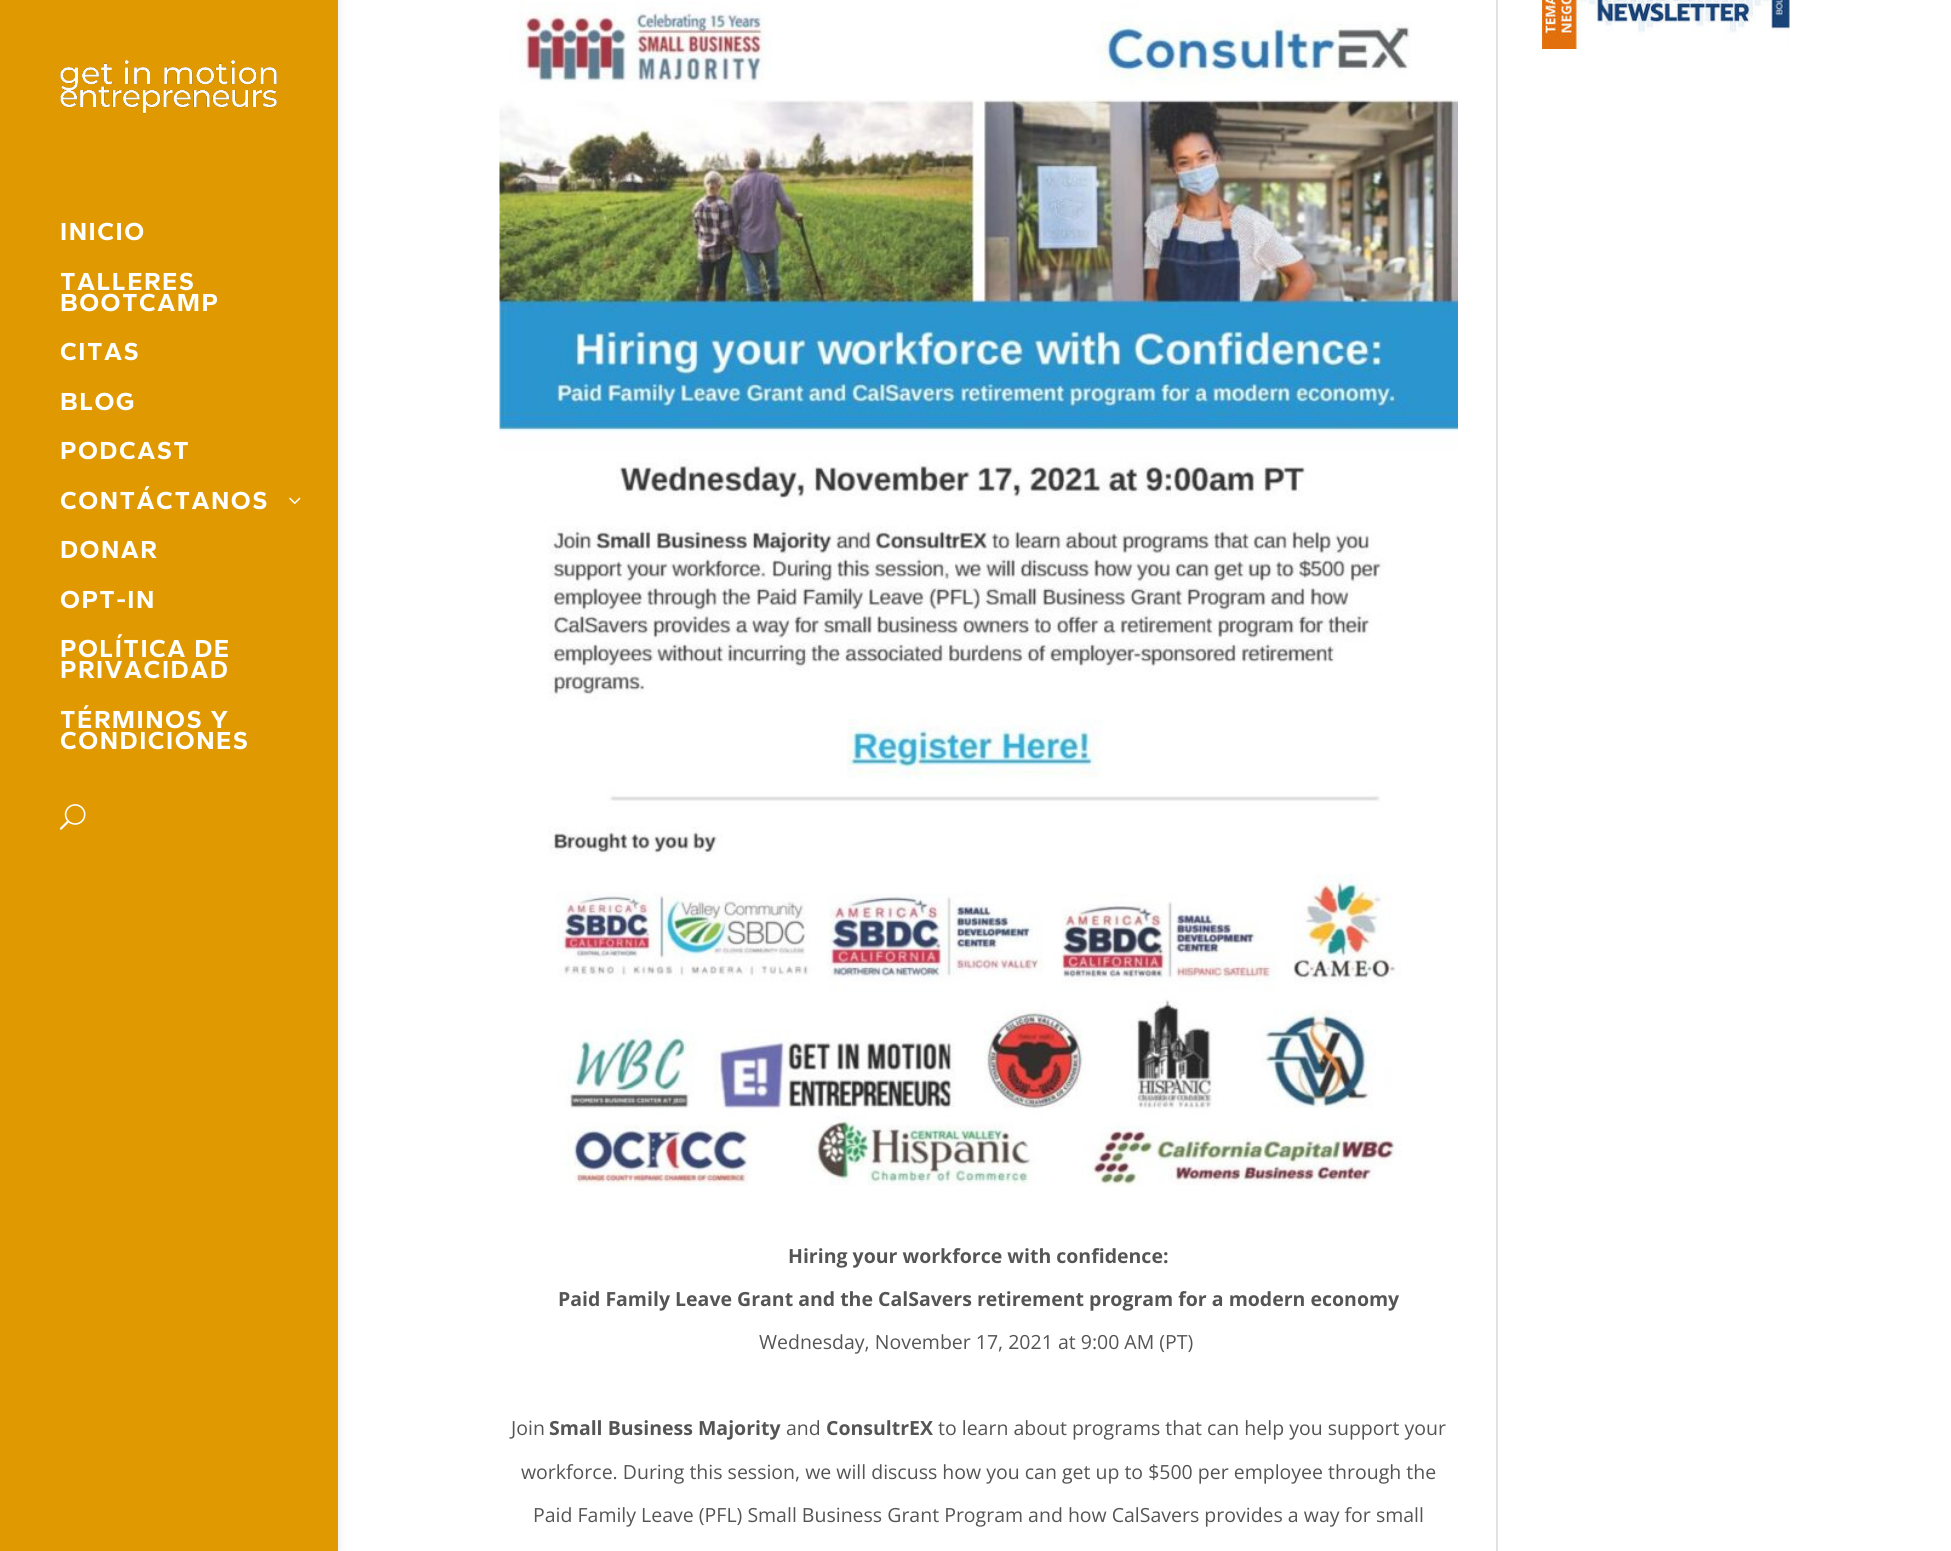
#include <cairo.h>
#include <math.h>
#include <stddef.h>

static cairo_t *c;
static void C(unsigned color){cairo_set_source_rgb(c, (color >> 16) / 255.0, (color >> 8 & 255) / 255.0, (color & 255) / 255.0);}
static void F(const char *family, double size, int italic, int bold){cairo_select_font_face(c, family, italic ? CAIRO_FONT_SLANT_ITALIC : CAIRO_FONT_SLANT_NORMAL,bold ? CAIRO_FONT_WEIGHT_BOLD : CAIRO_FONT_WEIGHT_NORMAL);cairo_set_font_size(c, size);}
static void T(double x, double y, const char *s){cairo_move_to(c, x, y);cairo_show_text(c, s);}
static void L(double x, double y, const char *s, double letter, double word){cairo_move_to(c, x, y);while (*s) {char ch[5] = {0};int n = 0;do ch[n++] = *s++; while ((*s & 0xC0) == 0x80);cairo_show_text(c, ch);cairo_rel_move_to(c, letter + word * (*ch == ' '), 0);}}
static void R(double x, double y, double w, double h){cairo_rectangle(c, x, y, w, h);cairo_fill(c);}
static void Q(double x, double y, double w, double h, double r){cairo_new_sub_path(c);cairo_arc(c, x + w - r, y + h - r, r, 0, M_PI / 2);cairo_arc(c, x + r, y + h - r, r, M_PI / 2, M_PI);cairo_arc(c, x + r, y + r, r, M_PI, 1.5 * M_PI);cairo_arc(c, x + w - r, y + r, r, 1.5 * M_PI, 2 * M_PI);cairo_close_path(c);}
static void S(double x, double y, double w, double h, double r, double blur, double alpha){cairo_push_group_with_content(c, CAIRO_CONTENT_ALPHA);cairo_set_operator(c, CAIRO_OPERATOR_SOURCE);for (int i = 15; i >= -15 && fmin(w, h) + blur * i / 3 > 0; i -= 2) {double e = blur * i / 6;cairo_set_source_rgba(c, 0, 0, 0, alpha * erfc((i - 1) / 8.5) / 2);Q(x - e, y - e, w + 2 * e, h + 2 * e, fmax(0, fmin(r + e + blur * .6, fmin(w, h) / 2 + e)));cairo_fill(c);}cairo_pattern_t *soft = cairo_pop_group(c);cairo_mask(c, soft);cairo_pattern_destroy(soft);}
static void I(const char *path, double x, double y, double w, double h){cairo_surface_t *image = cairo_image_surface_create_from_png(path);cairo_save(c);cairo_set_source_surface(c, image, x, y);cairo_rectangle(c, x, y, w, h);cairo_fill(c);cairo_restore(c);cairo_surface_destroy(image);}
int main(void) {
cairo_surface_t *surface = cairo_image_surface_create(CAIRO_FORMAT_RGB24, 1951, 1551);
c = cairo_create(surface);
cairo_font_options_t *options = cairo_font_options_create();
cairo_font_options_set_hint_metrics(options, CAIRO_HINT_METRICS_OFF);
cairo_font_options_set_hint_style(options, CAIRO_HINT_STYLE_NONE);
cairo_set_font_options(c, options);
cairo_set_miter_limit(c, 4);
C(0xffffff);
cairo_paint(c);
C(0x000000);
S(0,0,338,1551,0,5,.1);
C(0xe09900);
R(0,0,338,1551);
I("1.png",60,60,217,54);
F("Gantari",25.5,0,1);
C(0xffffff);
L(60,240,"INICIO",1.5,0);
L(60,290,"TALLERES",1.5,0);
L(60,311,"BOOTCAMP",1.5,0);
L(60,360,"CITAS",1.5,0);
L(60,410,"BLOG",1.5,0);
L(60,459,"PODCAST",1.5,0);
L(60,509,"CONTÁCTANOS",1.5,0);
I("2.png",289,497,12,7);
L(60,558,"DONAR",1.5,0);
L(60,608,"OPT-IN",1.5,0);
L(60,657,"POLÍTICA DE",1.5,0);
L(60,678,"PRIVACIDAD",1.5,0);
L(60,728,"TÉRMINOS Y",1.5,0);
L(60,749,"CONDICIONES",1.5,0);
I("3.png",59,804,27,26);
I("4.png",1542,0,248,49);
I("5.png",499,2,959,1184);
F("Open Sans",19.5,0,1);
C(0x555555);
T(788,1263,"Hiring your workforce with confidence:");
T(558,1306,"Paid Family Leave Grant and the CalSavers retirement program for a modern economy");
F("Open Sans",19.5,0,0);
T(759,1349,"Wednesday, November 17, 2021 at 9:00 AM (PT)");
T(511,1435,"Join");
F("Open Sans",19.5,0,1);
T(549,1435,"Small Business Majority");
F("Open Sans",19.5,0,0);
T(786,1435,"and");
F("Open Sans",19.5,0,1);
T(826,1435,"ConsultrEX");
F("Open Sans",19.5,0,0);
T(938,1435,"to learn about programs that can help you support your");
T(521,1479,"workforce. During this session, we will discuss how you can get up to $500 per employee through the");
T(533,1522,"Paid Family Leave (PFL) Small Business Grant Program and how CalSavers provides a way for small");
C(0xe2e2e2);
R(1496,0,2,1551);
cairo_surface_write_to_png(surface, "o.png");
cairo_font_options_destroy(options);
cairo_destroy(c);
cairo_surface_destroy(surface);
return 0;
}
